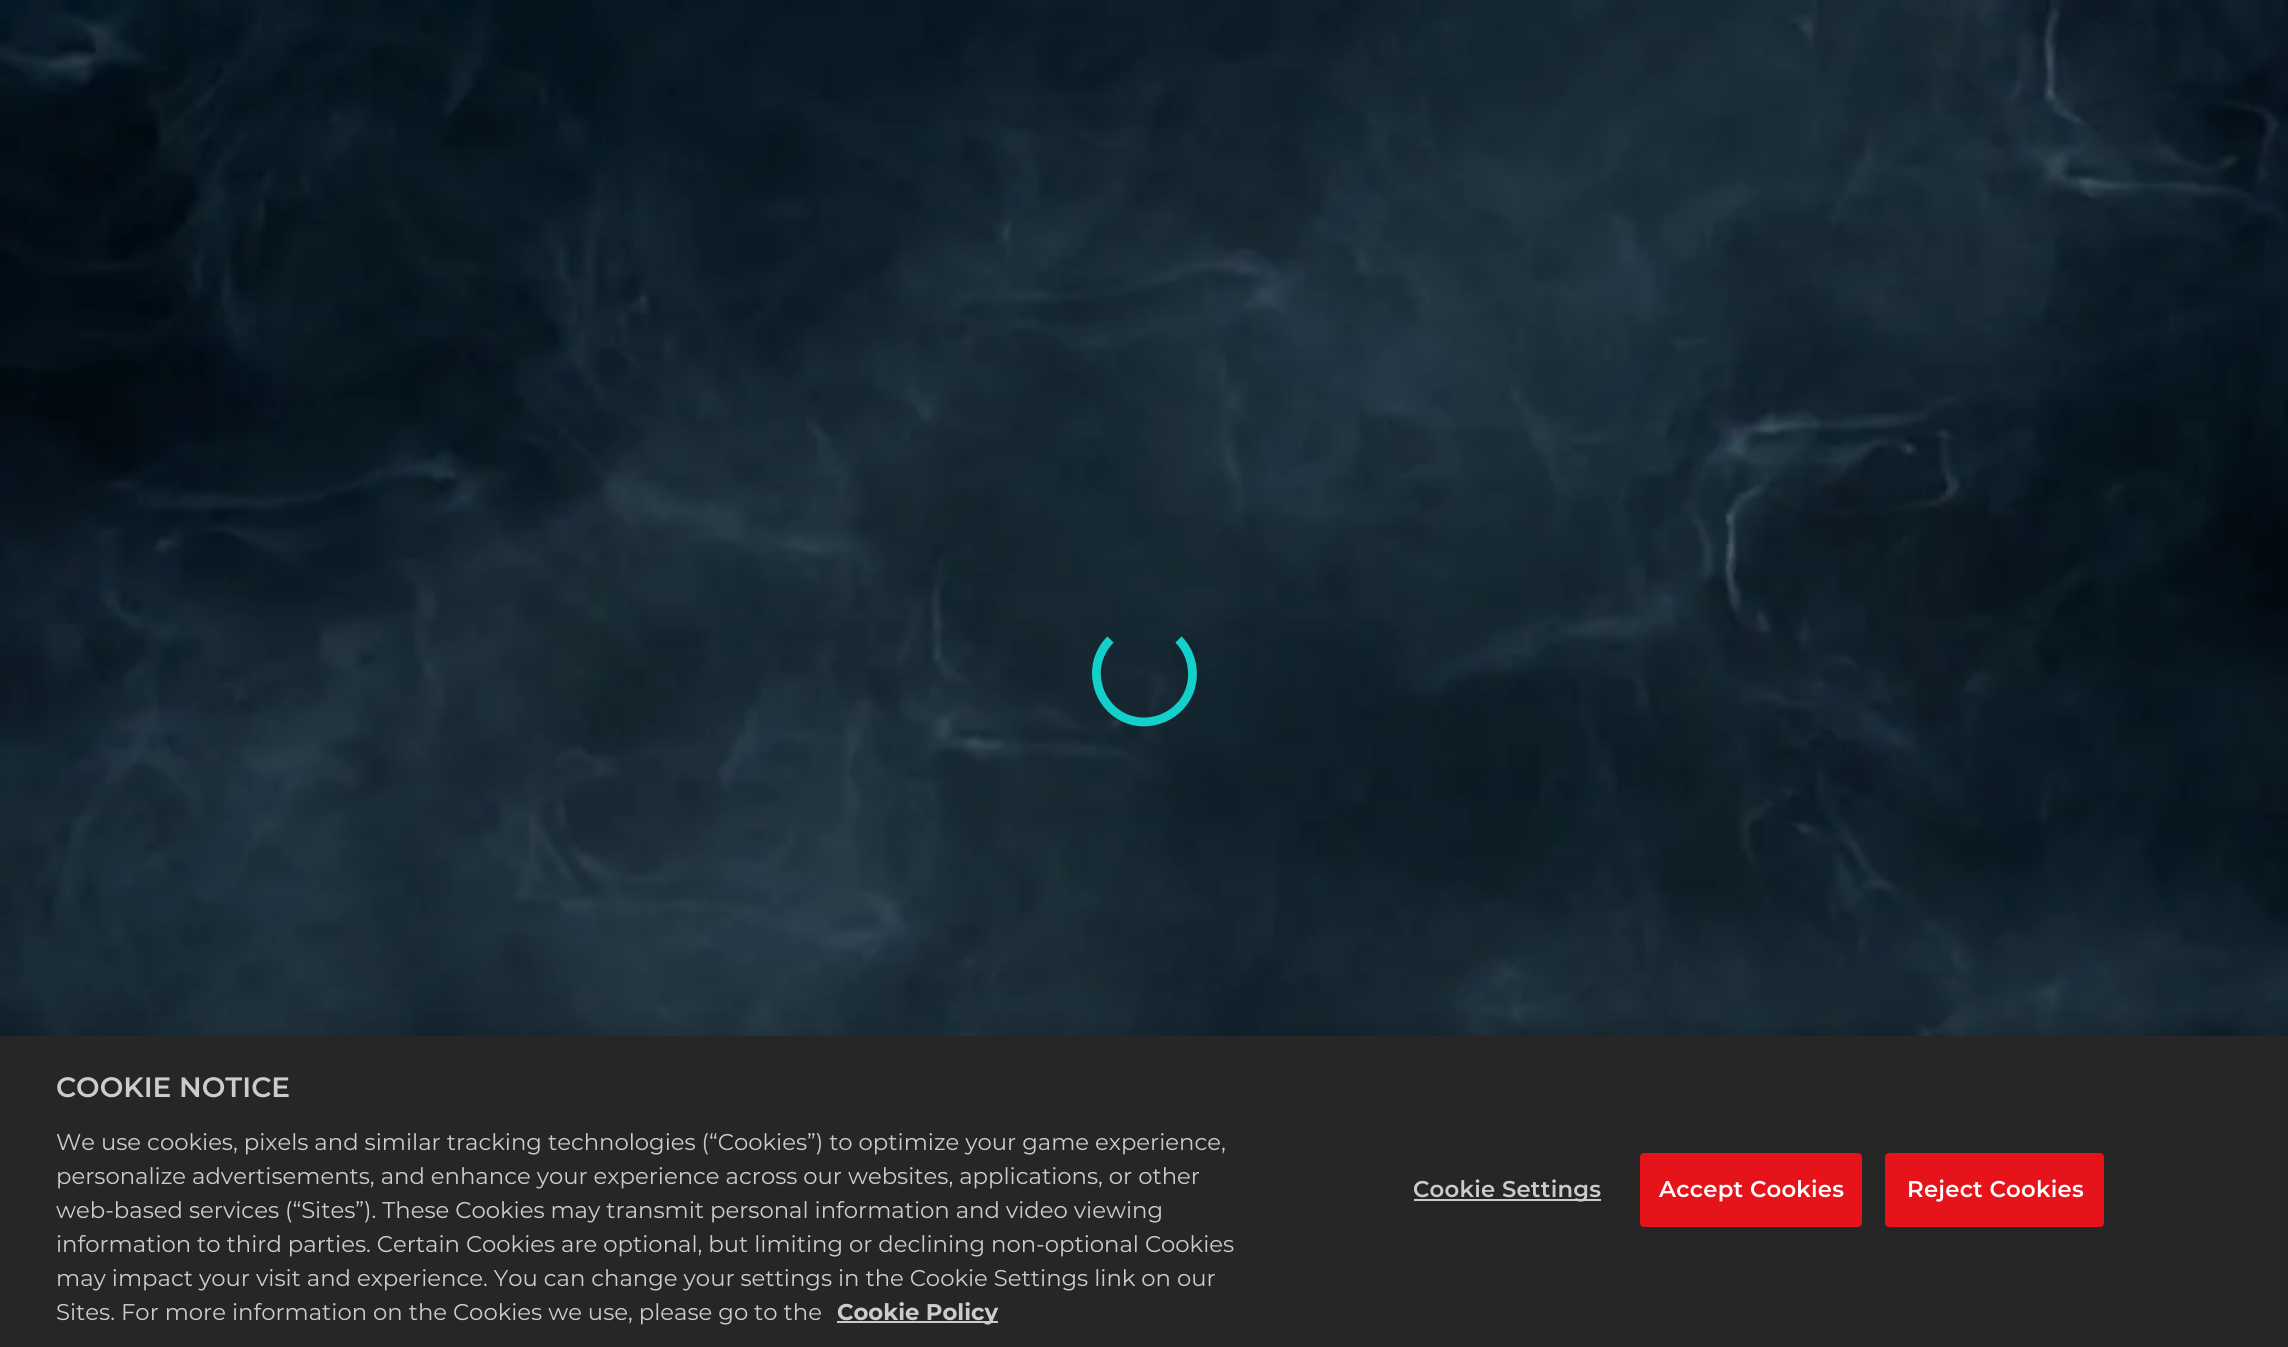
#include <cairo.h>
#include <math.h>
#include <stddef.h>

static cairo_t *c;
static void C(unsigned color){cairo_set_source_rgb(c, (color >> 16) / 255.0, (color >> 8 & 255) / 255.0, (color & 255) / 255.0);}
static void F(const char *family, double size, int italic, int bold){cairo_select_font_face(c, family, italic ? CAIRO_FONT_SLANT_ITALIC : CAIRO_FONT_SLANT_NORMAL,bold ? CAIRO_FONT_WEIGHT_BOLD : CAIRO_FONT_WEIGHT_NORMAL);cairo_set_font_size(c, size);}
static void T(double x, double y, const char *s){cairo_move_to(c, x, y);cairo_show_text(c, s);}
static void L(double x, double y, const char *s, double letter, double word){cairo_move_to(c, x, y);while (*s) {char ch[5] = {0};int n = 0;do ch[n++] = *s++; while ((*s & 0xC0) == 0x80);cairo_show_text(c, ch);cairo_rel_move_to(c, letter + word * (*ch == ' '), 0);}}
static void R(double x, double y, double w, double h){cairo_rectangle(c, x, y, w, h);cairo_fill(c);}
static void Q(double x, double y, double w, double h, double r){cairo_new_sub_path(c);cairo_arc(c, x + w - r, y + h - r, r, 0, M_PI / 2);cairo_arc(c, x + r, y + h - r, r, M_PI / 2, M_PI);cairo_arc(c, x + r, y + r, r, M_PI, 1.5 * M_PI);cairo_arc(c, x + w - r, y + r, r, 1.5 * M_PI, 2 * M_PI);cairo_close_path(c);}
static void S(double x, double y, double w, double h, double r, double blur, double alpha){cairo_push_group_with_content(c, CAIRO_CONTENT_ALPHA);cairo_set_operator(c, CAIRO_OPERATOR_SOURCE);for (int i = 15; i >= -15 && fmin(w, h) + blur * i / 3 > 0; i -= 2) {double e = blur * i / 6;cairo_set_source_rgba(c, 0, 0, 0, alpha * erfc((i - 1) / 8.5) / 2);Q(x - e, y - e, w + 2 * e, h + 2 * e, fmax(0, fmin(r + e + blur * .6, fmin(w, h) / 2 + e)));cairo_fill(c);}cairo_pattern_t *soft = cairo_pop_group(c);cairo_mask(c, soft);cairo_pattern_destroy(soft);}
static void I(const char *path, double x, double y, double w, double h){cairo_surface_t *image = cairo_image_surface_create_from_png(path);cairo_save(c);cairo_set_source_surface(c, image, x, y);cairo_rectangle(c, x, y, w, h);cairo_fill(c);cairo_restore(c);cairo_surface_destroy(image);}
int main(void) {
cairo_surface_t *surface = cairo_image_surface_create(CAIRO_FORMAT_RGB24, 2288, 1347);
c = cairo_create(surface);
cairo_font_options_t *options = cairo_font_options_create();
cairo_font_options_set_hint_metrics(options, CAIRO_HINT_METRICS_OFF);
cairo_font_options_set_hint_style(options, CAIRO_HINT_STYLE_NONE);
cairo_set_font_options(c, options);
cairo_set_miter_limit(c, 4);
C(0xffffff);
cairo_paint(c);
I("1.png",0,0,2288,1036);
cairo_new_path(c);
cairo_move_to(c,1178.5,639.5);
cairo_curve_to(c,1187.5,648.5,1192.5,661,1192.5,674);
cairo_curve_to(c,1192.5,716.5,1140.5,738,1110.5,708);
cairo_curve_to(c,1104,701,1099,692.5,1097.5,683);
cairo_curve_to(c,1094,667.5,1099,651,1110.5,639.5);
C(0x13d0ca);
cairo_set_line_width(c,8.8);
cairo_stroke(c);
C(0x000000);
S(0,1036,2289,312,0,16,.2);
C(0x262626);
R(0,1036,2288,311);
F("Montserrat SemiBold",28,0,0);
C(0xcccccc);
T(56,1097,"COOKIE NOTICE");
F("Montserrat",22.75,0,0);
T(56,1150,"We use cookies, pixels and similar tracking technologies (“Cookies”) to optimize your game experience,");
T(56,1184,"personalize advertisements, and enhance your experience across our websites, applications, or other");
T(56,1218,"web-based services (“Sites”). These Cookies may transmit personal information and video viewing");
T(56,1252,"information to third parties. Certain Cookies are optional, but limiting or declining non-optional Cookies");
T(56,1286,"may impact your visit and experience. You can change your settings in the Cookie Settings link on our");
T(56,1320,"Sites. For more information on the Cookies we use, please go to the");
R(837,1321,161,2);
F("Montserrat",22.75,0,1);
T(837,1320,"Cookie Policy");
R(1414,1199,187,2);
F("Montserrat SemiBold",22.75,0,0);
L(1413,1197,"Cookie Settings",.25,0);
C(0xe7131a);
Q(1641,1154,220,72,3);
cairo_fill_preserve(c);
cairo_set_line_width(c,2);
cairo_stroke(c);
C(0xffffff);
L(1659,1197,"Accept Cookies",.25,0);
C(0xe7131a);
Q(1886,1154,217,72,3);
cairo_fill_preserve(c);
cairo_stroke(c);
C(0xffffff);
L(1907,1197,"Reject Cookies",.25,0);
cairo_surface_write_to_png(surface, "o.png");
cairo_font_options_destroy(options);
cairo_destroy(c);
cairo_surface_destroy(surface);
return 0;
}
